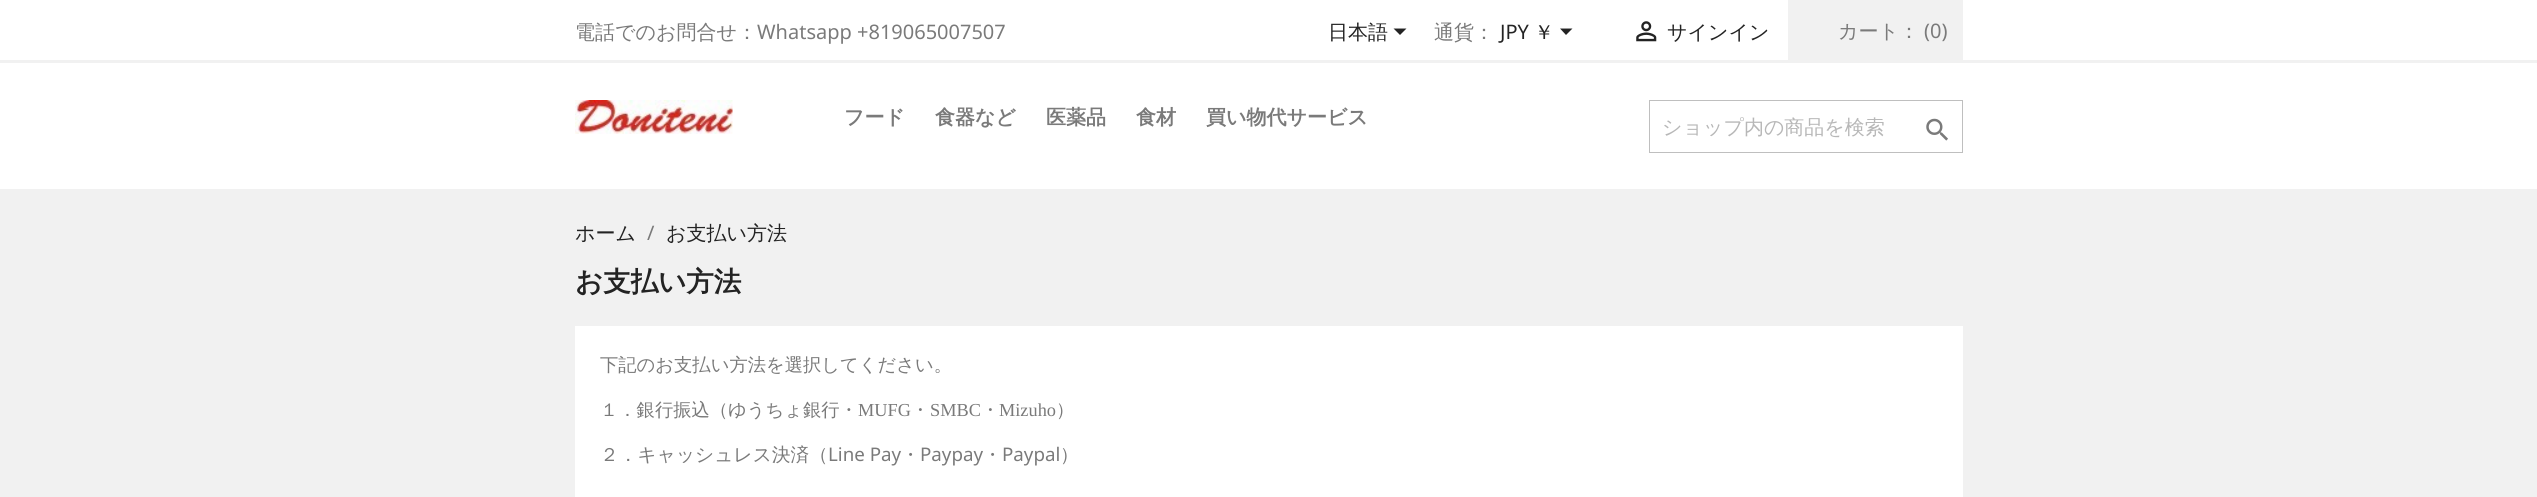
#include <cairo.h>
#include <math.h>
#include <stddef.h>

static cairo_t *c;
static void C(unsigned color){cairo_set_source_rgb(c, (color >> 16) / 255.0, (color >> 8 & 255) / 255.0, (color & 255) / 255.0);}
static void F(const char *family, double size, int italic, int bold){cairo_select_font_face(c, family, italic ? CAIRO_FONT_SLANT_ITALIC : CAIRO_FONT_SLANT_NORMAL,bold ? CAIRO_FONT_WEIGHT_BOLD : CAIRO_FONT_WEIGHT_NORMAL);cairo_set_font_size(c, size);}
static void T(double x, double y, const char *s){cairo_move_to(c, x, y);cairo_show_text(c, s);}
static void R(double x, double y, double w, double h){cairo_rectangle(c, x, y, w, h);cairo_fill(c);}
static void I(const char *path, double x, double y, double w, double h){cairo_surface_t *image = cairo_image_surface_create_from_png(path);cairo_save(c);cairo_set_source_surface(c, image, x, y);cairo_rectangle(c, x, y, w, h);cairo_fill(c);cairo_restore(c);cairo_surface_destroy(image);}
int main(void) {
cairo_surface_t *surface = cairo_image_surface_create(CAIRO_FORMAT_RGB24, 2537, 497);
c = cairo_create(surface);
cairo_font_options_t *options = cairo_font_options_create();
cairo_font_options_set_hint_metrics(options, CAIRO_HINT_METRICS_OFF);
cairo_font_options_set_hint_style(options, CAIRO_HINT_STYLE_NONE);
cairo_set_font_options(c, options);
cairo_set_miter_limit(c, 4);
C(0xffffff);
cairo_paint(c);
C(0xf1f1f1);
R(0,60,2537,3);
F("WenQuanYi Zen Hei Medium",20,0,0);
C(0x7a7a7a);
T(575,39,"電話でのお問合せ：");
F("Noto Sans",20,0,0);
T(757,39,"Whatsapp +819065007507");
F("WenQuanYi Zen Hei Medium",20,0,0);
C(0x232323);
T(1328,39,"日本語");
cairo_new_path(c);
cairo_move_to(c,1393.5,28.5);
cairo_line_to(c,1406.5,28.5);
cairo_line_to(c,1400,35);
cairo_close_path(c);
cairo_fill(c);
C(0x7a7a7a);
T(1434,39,"通貨：");
F("Noto Sans",20,0,0);
C(0x232323);
T(1500,39,"JPY");
F("WenQuanYi Zen Hei Medium",20,0,0);
T(1534,39,"￥");
cairo_new_path(c);
cairo_move_to(c,1560,28.5);
cairo_line_to(c,1572.5,28.5);
cairo_line_to(c,1566,35);
cairo_close_path(c);
cairo_fill(c);
I("1.png",1636,21,21,21);
T(1667,39,"サインイン");
C(0xf1f1f1);
R(1788,0,175,60);
C(0x7a7a7a);
T(1838,38,"カート：");
F("Noto Sans",20,0,0);
T(1924,38,"(0)");
I("2.png",575,100,158,34);
F("WenQuanYi Zen Hei",20,0,1);
T(844,124,"フード");
T(935,124,"食器など");
T(1046,124,"医薬品");
T(1136,124,"食材");
T(1206,124,"買い物代サービス");
cairo_rectangle(c,1649.5,100.5,313,52);
C(0xbfbfbf);
cairo_set_line_width(c,1);
cairo_stroke(c);
F("WenQuanYi Zen Hei Medium",20,0,0);
C(0xb7b7b7);
T(1662,134,"ショップ内の商品を検索");
I("3.png",1926,118,22,23);
C(0xf1f1f1);
R(0,189,2537,308);
C(0x232323);
T(575,240,"ホーム");
F("Noto Sans",20,0,0);
C(0x7a7a7a);
T(647,240,"/");
F("WenQuanYi Zen Hei Medium",20,0,0);
C(0x232323);
T(666,240,"お支払い方法");
F("WenQuanYi Zen Hei",27.5,0,1);
T(575,291,"お支払い方法");
C(0xffffff);
R(575,326,1388,171);
F("WenQuanYi Zen Hei Medium",18.3,0,0);
C(0x7a7a7a);
T(600,371,"下記のお支払い方法を選択してください。");
T(600,416,"１．銀行振込（ゆうちょ銀行・");
F("Liberation Serif",18.3,0,0);
T(858,416,"MUFG");
F("WenQuanYi Zen Hei Medium",18.3,0,0);
T(911,416,"・");
F("Liberation Serif",18.3,0,0);
T(930,416,"SMBC");
F("WenQuanYi Zen Hei Medium",18.3,0,0);
T(981,416,"・");
F("Liberation Serif",18.3,0,0);
T(999,416,"Mizuho");
F("WenQuanYi Zen Hei Medium",18.3,0,0);
T(1056,416,"）");
F("WenQuanYi Zen Hei Medium",18.75,0,0);
T(600,461,"２．キャッシュレス決済（");
F("Noto Sans",18.75,0,0);
T(828,461,"Line Pay");
F("WenQuanYi Zen Hei Medium",18.75,0,0);
T(901,461,"・");
F("Noto Sans",18.75,0,0);
T(920,461,"Paypay");
F("WenQuanYi Zen Hei Medium",18.75,0,0);
T(983,461,"・");
F("Noto Sans",18.75,0,0);
T(1002,461,"Paypal");
F("WenQuanYi Zen Hei Medium",18.75,0,0);
T(1060,461,"）");
cairo_surface_write_to_png(surface, "o.png");
cairo_font_options_destroy(options);
cairo_destroy(c);
cairo_surface_destroy(surface);
return 0;
}
